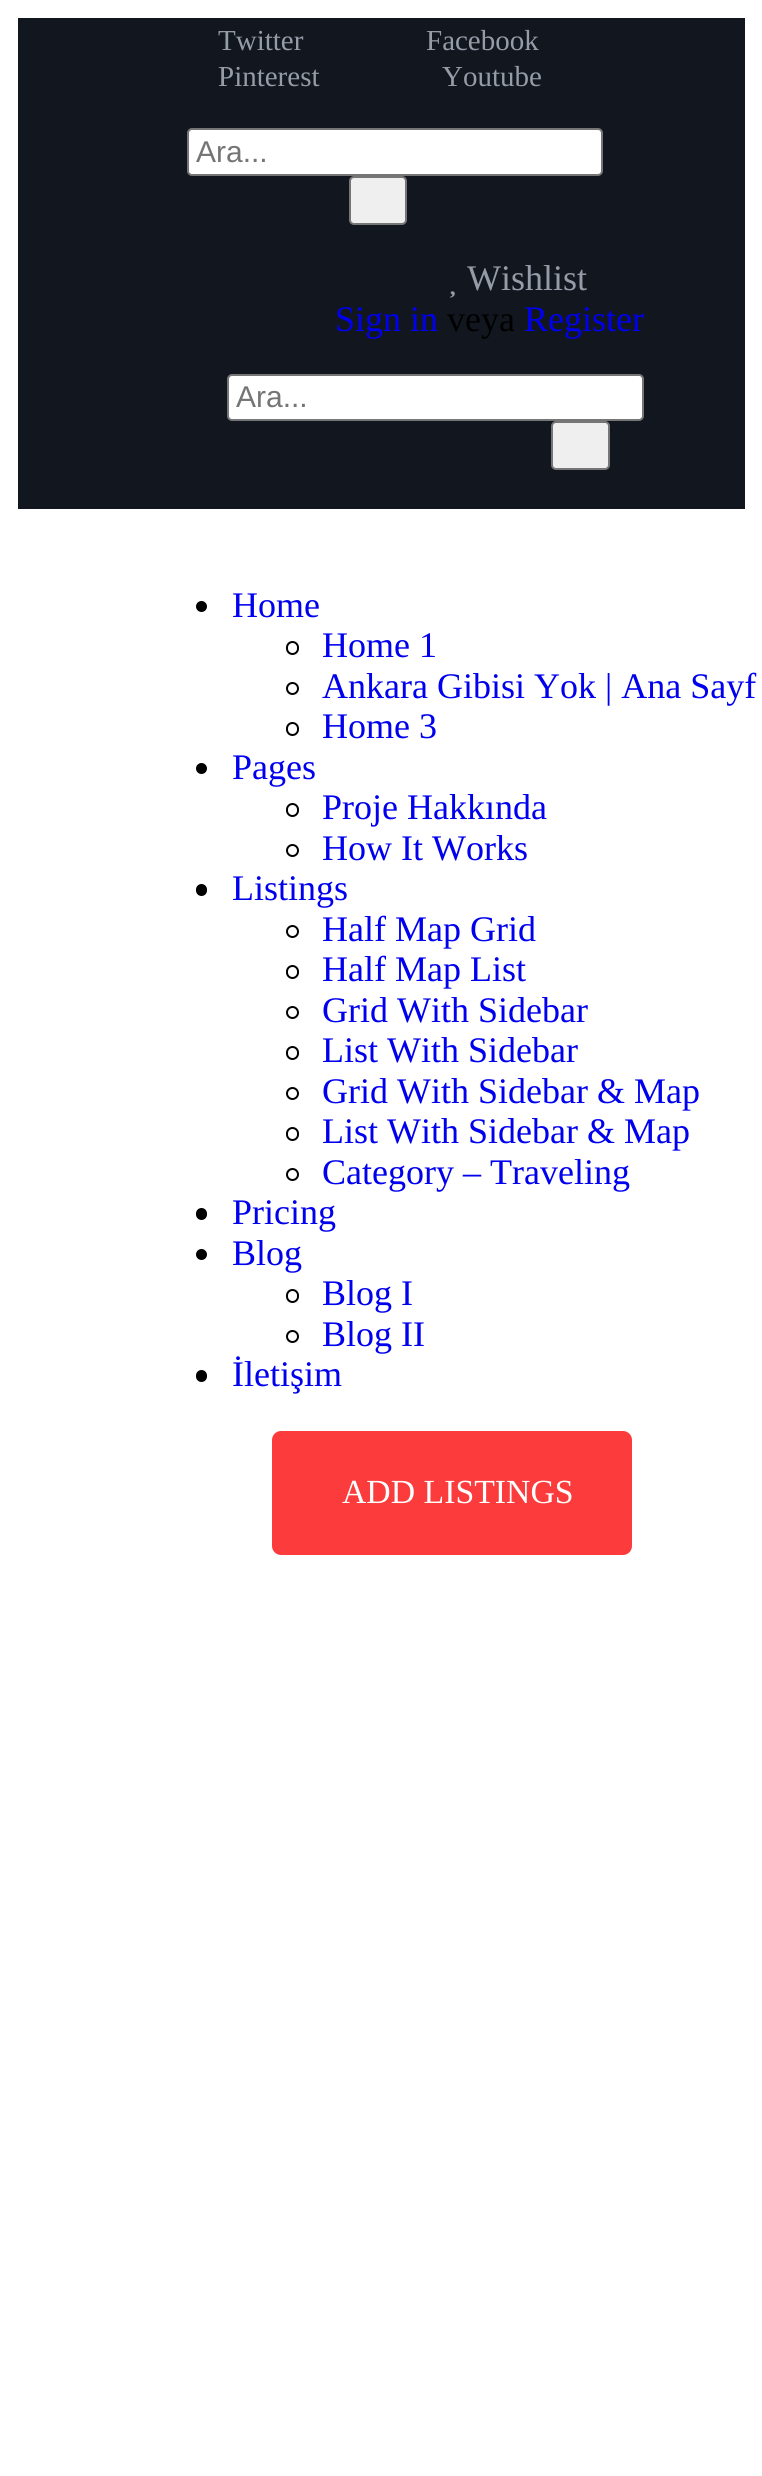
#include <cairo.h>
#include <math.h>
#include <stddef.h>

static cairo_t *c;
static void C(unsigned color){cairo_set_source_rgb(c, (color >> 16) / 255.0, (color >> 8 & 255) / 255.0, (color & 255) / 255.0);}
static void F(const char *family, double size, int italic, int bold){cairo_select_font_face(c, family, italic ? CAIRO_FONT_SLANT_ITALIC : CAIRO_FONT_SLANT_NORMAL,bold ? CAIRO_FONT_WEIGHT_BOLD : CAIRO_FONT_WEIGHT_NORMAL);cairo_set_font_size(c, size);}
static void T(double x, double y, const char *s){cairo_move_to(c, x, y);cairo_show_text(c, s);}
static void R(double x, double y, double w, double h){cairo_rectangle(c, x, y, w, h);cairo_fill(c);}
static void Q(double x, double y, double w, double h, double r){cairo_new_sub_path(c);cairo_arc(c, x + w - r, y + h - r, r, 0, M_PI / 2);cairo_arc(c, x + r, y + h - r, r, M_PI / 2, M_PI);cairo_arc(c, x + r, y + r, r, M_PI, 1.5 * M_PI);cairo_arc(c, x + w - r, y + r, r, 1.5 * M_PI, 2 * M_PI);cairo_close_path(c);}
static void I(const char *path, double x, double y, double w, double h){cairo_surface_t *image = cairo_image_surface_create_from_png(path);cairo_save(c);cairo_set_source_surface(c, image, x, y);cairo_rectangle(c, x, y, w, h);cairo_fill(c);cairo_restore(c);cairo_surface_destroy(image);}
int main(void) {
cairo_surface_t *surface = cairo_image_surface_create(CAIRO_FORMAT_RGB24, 762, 2476);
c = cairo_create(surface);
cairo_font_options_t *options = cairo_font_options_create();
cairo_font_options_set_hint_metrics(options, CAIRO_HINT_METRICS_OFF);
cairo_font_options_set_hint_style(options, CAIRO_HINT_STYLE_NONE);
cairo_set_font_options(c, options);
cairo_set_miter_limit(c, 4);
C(0xffffff);
cairo_paint(c);
C(0x11161f);
R(18,18,727,491);
F("Liberation Serif",29,0,0);
C(0x959ca7);
T(218,50,"Twitter");
T(426,50,"Facebook");
T(218,86,"Pinterest");
T(442,86,"Youtube");
C(0xffffff);
Q(188,129,414,46,4);
cairo_fill_preserve(c);
C(0x767676);
cairo_stroke(c);
F("Liberation Sans",30,0,0);
C(0x757575);
T(196,162,"Ara...");
C(0xefefef);
Q(350,177,56,47,4);
cairo_fill_preserve(c);
C(0x767676);
cairo_stroke(c);
F("Liberation Serif",36,0,0);
C(0x959ca7);
T(467,290,"Wishlist");
I("1.png",450,291,5,7);
C(0x0000ee);
T(335,331,"Sign in");
C(0x000000);
T(447,331,"veya");
C(0x0000ee);
T(524,331,"Register");
C(0xffffff);
Q(228,375,415,45,4);
cairo_fill_preserve(c);
C(0x767676);
cairo_stroke(c);
F("Liberation Sans",30,0,0);
C(0x757575);
T(236,407,"Ara...");
C(0xefefef);
Q(552,422,57,47,4);
cairo_fill_preserve(c);
C(0x767676);
cairo_stroke(c);
C(0x000000);
cairo_arc(c,201.5,606.5,5.5,0,2 * M_PI);
cairo_fill(c);
F("Liberation Serif",36,0,0);
C(0x0000ee);
T(232,617,"Home");
Q(287,642,11,12,5.5);
C(0x000000);
cairo_stroke(c);
C(0x0000ee);
T(322,657,"Home 1");
cairo_new_path(c);
cairo_arc(c,292.5,688.5,5.5,0,2 * M_PI);
C(0x000000);
cairo_stroke(c);
C(0x0000ee);
T(322,698,"Ankara Gibisi Yok | Ana Sayf");
Q(287,723,11,12,5.5);
C(0x000000);
cairo_stroke(c);
C(0x0000ee);
T(322,738,"Home 3");
C(0x000000);
cairo_new_path(c);
cairo_arc(c,201.5,768.5,5.5,0,2 * M_PI);
cairo_fill(c);
C(0x0000ee);
T(232,779,"Pages");
Q(287,804,11,12,5.5);
C(0x000000);
cairo_stroke(c);
C(0x0000ee);
T(322,819,"Proje Hakkında");
cairo_new_path(c);
cairo_arc(c,292.5,850.5,5.5,0,2 * M_PI);
C(0x000000);
cairo_stroke(c);
C(0x0000ee);
T(322,860,"How It Works");
C(0x000000);
Q(196,884,11,12,5.5);
cairo_fill(c);
C(0x0000ee);
T(232,900,"Listings");
cairo_new_path(c);
cairo_arc(c,292.5,931.5,5.5,0,2 * M_PI);
C(0x000000);
cairo_stroke(c);
C(0x0000ee);
T(322,941,"Half Map Grid");
Q(287,966,11,12,5.5);
C(0x000000);
cairo_stroke(c);
C(0x0000ee);
T(322,981,"Half Map List");
cairo_new_path(c);
cairo_arc(c,292.5,1012.5,5.5,0,2 * M_PI);
C(0x000000);
cairo_stroke(c);
C(0x0000ee);
T(322,1022,"Grid With Sidebar");
Q(287,1047,11,12,5.5);
C(0x000000);
cairo_stroke(c);
C(0x0000ee);
T(322,1062,"List With Sidebar");
cairo_new_path(c);
cairo_arc(c,292.5,1093.5,5.5,0,2 * M_PI);
C(0x000000);
cairo_stroke(c);
C(0x0000ee);
T(322,1103,"Grid With Sidebar & Map");
Q(287,1128,11,12,5.5);
C(0x000000);
cairo_stroke(c);
C(0x0000ee);
T(322,1143,"List With Sidebar & Map");
cairo_new_path(c);
cairo_arc(c,292.5,1174.5,5.5,0,2 * M_PI);
C(0x000000);
cairo_stroke(c);
C(0x0000ee);
T(322,1184,"Category – Traveling");
C(0x000000);
Q(196,1208,11,12,5.5);
cairo_fill(c);
C(0x0000ee);
T(232,1224,"Pricing");
C(0x000000);
cairo_new_path(c);
cairo_arc(c,201.5,1254.5,5.5,0,2 * M_PI);
cairo_fill(c);
C(0x0000ee);
T(232,1265,"Blog");
Q(287,1290,11,12,5.5);
C(0x000000);
cairo_stroke(c);
C(0x0000ee);
T(322,1305,"Blog I");
cairo_new_path(c);
cairo_arc(c,292.5,1336.5,5.5,0,2 * M_PI);
C(0x000000);
cairo_stroke(c);
C(0x0000ee);
T(322,1346,"Blog II");
C(0x000000);
Q(196,1370,11,12,5.5);
cairo_fill(c);
C(0x0000ee);
T(232,1386,"İletişim");
C(0xfc3c3c);
Q(272,1431,360,124,9);
cairo_fill(c);
F("Liberation Serif",33.75,0,0);
C(0xffffff);
T(342,1503,"ADD LISTINGS");
cairo_surface_write_to_png(surface, "o.png");
cairo_font_options_destroy(options);
cairo_destroy(c);
cairo_surface_destroy(surface);
return 0;
}
